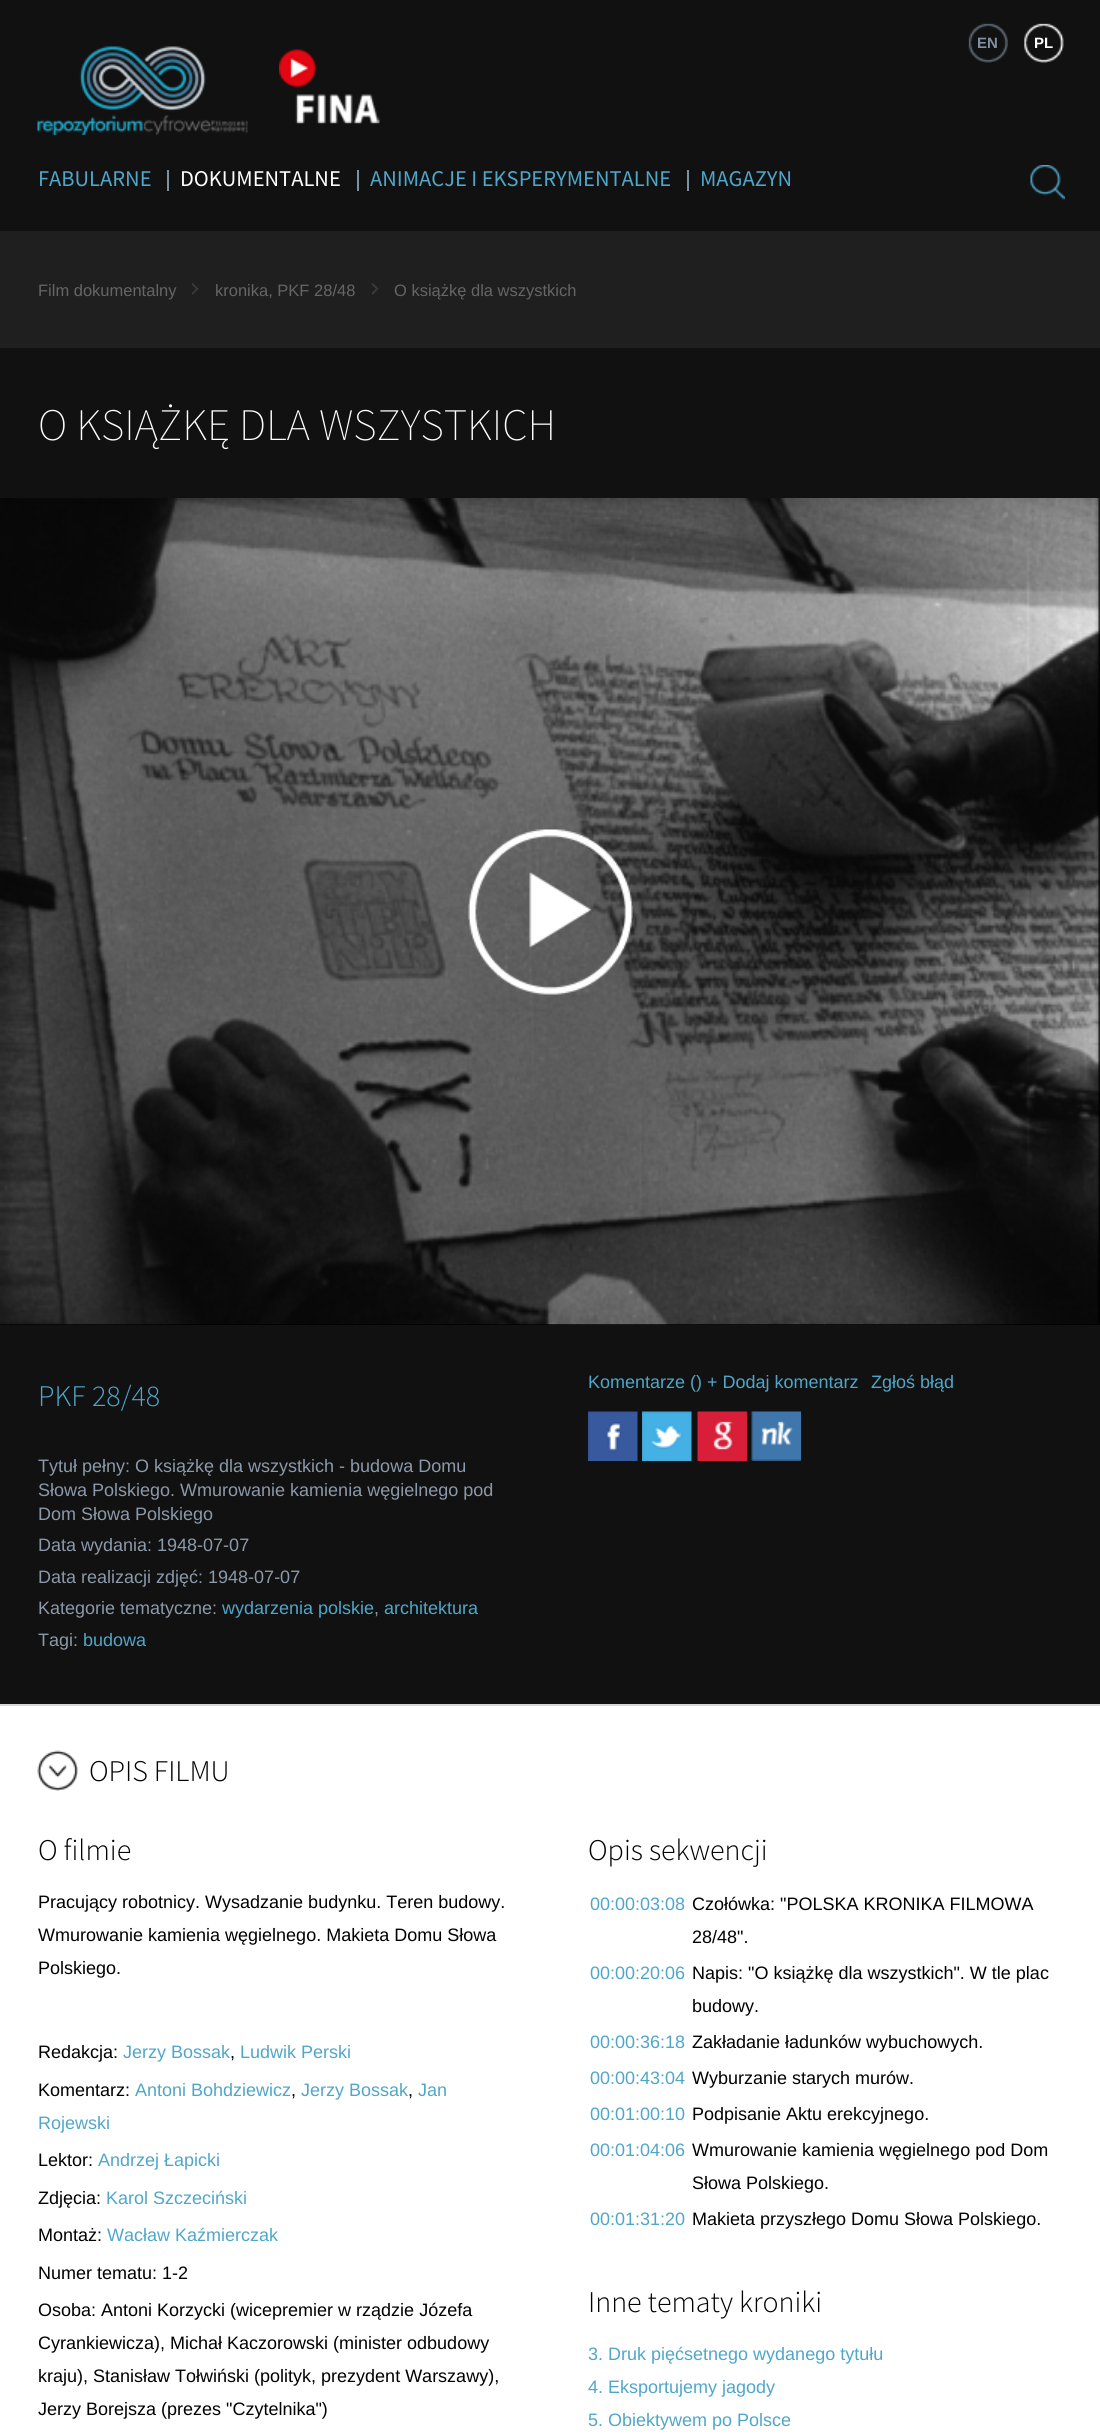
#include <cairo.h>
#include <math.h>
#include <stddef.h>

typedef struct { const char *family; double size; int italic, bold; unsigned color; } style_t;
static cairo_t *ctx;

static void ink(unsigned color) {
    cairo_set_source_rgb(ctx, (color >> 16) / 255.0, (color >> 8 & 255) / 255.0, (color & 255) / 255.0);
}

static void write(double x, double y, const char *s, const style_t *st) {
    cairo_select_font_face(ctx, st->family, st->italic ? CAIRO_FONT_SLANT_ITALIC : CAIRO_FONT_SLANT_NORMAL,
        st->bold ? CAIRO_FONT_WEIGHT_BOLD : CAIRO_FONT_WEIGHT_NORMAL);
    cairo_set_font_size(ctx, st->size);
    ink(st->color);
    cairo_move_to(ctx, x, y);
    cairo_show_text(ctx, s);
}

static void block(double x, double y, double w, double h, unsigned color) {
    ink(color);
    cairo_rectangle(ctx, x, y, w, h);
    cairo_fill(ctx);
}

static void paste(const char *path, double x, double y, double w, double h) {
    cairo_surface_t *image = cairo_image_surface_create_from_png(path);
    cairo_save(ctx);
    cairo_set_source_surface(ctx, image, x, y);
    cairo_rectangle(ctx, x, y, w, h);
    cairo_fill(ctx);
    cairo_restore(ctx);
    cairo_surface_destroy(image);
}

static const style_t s1 = {"Liberation Sans", 15, 0, 1, 0x8090a2};
static const style_t s2 = {"Liberation Sans", 15, 0, 1, 0xffffff};
static const style_t s3 = {"Source Sans Pro", 22.5, 0, 0, 0x50a6c9};
static const style_t s4 = {"Source Sans Pro", 22.5, 0, 0, 0xffffff};
static const style_t s5 = {"Liberation Sans", 16.5, 0, 0, 0x656565};
static const style_t s6 = {"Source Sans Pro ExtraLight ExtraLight", 45, 0, 0, 0xffffff};
static const style_t s7 = {"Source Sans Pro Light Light", 30, 0, 0, 0x50a6c9};
static const style_t s8 = {"Liberation Sans", 18, 0, 0, 0x8b99aa};
static const style_t s9 = {"Liberation Sans", 18, 0, 0, 0x50a6c9};
static const style_t s10 = {"Source Sans Pro Light Light", 30, 0, 0, 0x000000};
static const style_t s11 = {"Liberation Sans", 18, 0, 0, 0x000000};

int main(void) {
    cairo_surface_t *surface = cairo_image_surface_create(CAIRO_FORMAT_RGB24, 1100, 2435);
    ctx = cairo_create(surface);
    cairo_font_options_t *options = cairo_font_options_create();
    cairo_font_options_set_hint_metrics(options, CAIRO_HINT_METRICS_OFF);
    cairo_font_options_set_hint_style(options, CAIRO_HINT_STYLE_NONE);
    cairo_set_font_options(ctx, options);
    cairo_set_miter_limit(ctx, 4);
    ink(0x111111);
    cairo_paint(ctx);
    paste("pic1.png", 968, 23, 40, 40);
    paste("pic2.png", 1024, 23, 40, 40);
    write(977, 48, "EN", &s1);
    write(1034, 48, "PL", &s2);
    paste("pic3.png", 37, 46, 211, 89);
    paste("pic4.png", 279, 49, 101, 75);
    write(38, 186, "FABULARNE", &s3);
    write(180, 186, "DOKUMENTALNE", &s4);
    block(167, 170, 2, 21, 0x8090a2);
    write(370, 186, "ANIMACJE I EKSPERYMENTALNE", &s3);
    block(357, 170, 2, 21, 0x8090a2);
    write(700, 186, "MAGAZYN", &s3);
    block(687, 170, 2, 21, 0x8090a2);
    paste("pic5.png", 1030, 165, 35, 35);
    block(0, 231, 1100, 117, 0x1f1f1f);
    write(38, 296, "Film dokumentalny", &s5);
    paste("pic6.png", 191, 283, 8, 12);
    write(215, 296, "kronika, PKF 28/48", &s5);
    paste("pic7.png", 371, 283, 8, 12);
    write(394, 296, "O książkę dla wszystkich", &s5);
    write(38, 440, "O KSIĄŻKĘ DLA WSZYSTKICH", &s6);
    block(0, 1324, 1100, 1, 0x000000);
    paste("pic8.png", 0, 498, 1100, 827);
    paste("pic9.png", 468, 829, 165, 166);
    write(38, 1406, "PKF", &s7);
    write(92, 1406, "28/48", &s7);
    write(38, 1472, "Tytuł pełny: O książkę dla wszystkich - budowa Domu", &s8);
    write(38, 1496, "Słowa Polskiego. Wmurowanie kamienia węgielnego pod", &s8);
    write(38, 1520, "Dom Słowa Polskiego", &s8);
    write(38, 1551, "Data wydania: 1948-07-07", &s8);
    write(38, 1583, "Data realizacji zdjęć: 1948-07-07", &s8);
    write(38, 1614, "Kategorie tematyczne:", &s8);
    write(222, 1614, "wydarzenia polskie", &s9);
    write(374, 1614, ",", &s8);
    write(384, 1614, "architektura", &s9);
    write(38, 1646, "Tagi:", &s8);
    write(83, 1646, "budowa", &s9);
    write(588, 1388, "Komentarze () + Dodaj komentarz", &s9);
    write(871, 1388, "Zgłoś błąd", &s9);
    paste("pic10.png", 588, 1411, 50, 50);
    paste("pic11.png", 642, 1411, 50, 50);
    paste("pic12.png", 697, 1411, 50, 50);
    paste("pic13.png", 751, 1411, 50, 50);
    block(0, 1706, 1100, 729, 0xffffff);
    block(0, 1704, 1100, 2, 0xd6d8db);
    paste("pic14.png", 37, 1750, 41, 41);
    write(89, 1781, "OPIS FILMU", &s10);
    write(38, 1860, "O filmie", &s10);
    write(38, 1908, "Pracujący robotnicy. Wysadzanie budynku. Teren budowy.", &s11);
    write(38, 1941, "Wmurowanie kamienia węgielnego. Makieta Domu Słowa", &s11);
    write(38, 1974, "Polskiego.", &s11);
    write(38, 2058, "Redakcja:", &s11);
    write(123, 2058, "Jerzy Bossak", &s9);
    write(230, 2058, ",", &s11);
    write(240, 2058, "Ludwik Perski", &s9);
    write(38, 2096, "Komentarz:", &s11);
    write(135, 2096, "Antoni Bohdziewicz", &s9);
    write(291, 2096, ",", &s11);
    write(301, 2096, "Jerzy Bossak", &s9);
    write(408, 2096, ",", &s11);
    write(418, 2096, "Jan", &s9);
    write(38, 2129, "Rojewski", &s9);
    write(38, 2166, "Lektor:", &s11);
    write(98, 2166, "Andrzej Łapicki", &s9);
    write(38, 2204, "Zdjęcia:", &s11);
    write(106, 2204, "Karol Szczeciński", &s9);
    write(38, 2241, "Montaż:", &s11);
    write(107, 2241, "Wacław Kaźmierczak", &s9);
    write(38, 2279, "Numer tematu: 1-2", &s11);
    write(38, 2316, "Osoba: Antoni Korzycki (wicepremier w rządzie Józefa", &s11);
    write(38, 2349, "Cyrankiewicza), Michał Kaczorowski (minister odbudowy", &s11);
    write(38, 2382, "kraju), Stanisław Tołwiński (polityk, prezydent Warszawy),", &s11);
    write(38, 2415, "Jerzy Borejsza (prezes \"Czytelnika\")", &s11);
    write(588, 1860, "Opis sekwencji", &s10);
    write(590, 1910, "00:00:03:08", &s9);
    write(692, 1910, "Czołówka: \"POLSKA KRONIKA FILMOWA", &s11);
    write(692, 1943, "28/48\".", &s11);
    write(590, 1979, "00:00:20:06", &s9);
    write(692, 1979, "Napis: \"O książkę dla wszystkich\". W tle plac", &s11);
    write(692, 2012, "budowy.", &s11);
    write(590, 2048, "00:00:36:18", &s9);
    write(692, 2048, "Zakładanie ładunków wybuchowych.", &s11);
    write(590, 2084, "00:00:43:04", &s9);
    write(692, 2084, "Wyburzanie starych murów.", &s11);
    write(590, 2120, "00:01:00:10", &s9);
    write(692, 2120, "Podpisanie Aktu erekcyjnego.", &s11);
    write(590, 2156, "00:01:04:06", &s9);
    write(692, 2156, "Wmurowanie kamienia węgielnego pod Dom", &s11);
    write(692, 2189, "Słowa Polskiego.", &s11);
    write(590, 2225, "00:01:31:20", &s9);
    write(692, 2225, "Makieta przyszłego Domu Słowa Polskiego.", &s11);
    write(588, 2312, "Inne tematy kroniki", &s10);
    write(588, 2360, "3. Druk pięćsetnego wydanego tytułu", &s9);
    write(588, 2393, "4. Eksportujemy jagody", &s9);
    write(588, 2426, "5. Obiektywem po Polsce", &s9);
    cairo_surface_write_to_png(surface, "screenshot.png");
    cairo_font_options_destroy(options);
    cairo_destroy(ctx);
    cairo_surface_destroy(surface);
    return 0;
}
